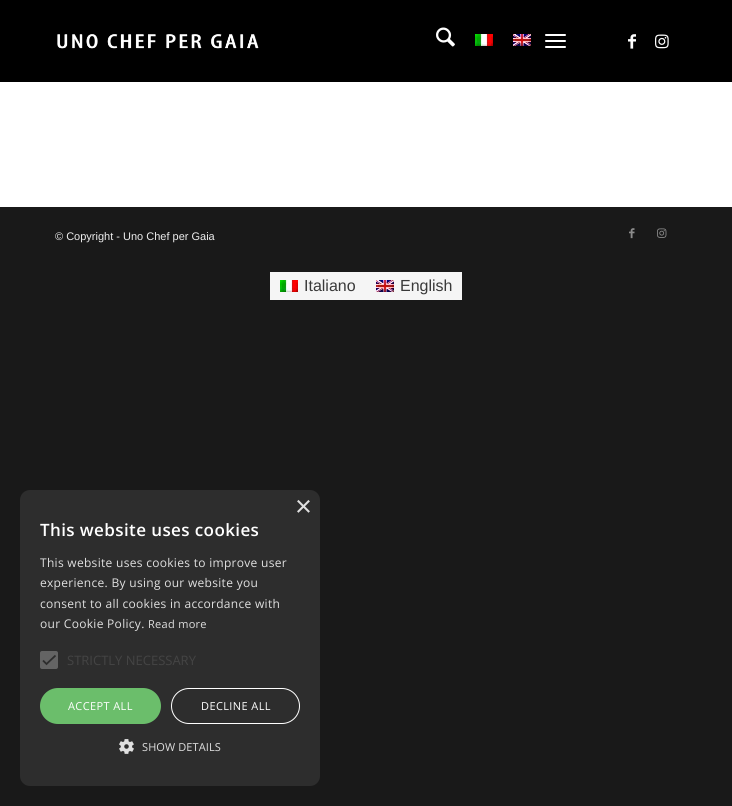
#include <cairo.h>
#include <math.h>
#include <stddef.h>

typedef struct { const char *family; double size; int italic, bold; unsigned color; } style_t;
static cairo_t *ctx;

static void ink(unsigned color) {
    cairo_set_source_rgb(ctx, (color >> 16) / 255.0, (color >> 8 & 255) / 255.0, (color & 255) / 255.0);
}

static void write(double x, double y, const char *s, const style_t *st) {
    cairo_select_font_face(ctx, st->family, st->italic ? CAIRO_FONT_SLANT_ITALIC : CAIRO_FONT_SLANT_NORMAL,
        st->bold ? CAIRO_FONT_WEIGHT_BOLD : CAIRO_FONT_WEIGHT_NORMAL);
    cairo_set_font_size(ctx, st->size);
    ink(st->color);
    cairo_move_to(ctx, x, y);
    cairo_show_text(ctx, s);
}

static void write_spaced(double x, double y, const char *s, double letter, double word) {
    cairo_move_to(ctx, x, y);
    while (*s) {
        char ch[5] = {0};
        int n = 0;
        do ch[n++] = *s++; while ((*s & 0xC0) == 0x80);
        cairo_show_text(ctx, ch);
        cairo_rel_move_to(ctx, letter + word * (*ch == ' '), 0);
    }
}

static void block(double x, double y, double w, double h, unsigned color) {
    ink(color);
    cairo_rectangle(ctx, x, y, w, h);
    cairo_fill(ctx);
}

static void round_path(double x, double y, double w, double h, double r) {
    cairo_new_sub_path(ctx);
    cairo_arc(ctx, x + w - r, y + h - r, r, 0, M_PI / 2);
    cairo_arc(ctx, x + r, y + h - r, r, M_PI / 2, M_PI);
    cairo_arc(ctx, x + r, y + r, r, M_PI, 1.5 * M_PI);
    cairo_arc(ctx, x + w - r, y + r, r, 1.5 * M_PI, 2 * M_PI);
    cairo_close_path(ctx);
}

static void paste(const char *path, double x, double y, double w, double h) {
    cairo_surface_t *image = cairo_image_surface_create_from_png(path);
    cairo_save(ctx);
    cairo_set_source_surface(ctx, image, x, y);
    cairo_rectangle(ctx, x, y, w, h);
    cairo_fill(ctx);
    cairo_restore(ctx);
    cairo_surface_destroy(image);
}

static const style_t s1 = {"Liberation Sans", 11, 0, 0, 0xeeeeee};
static const style_t s2 = {"Liberation Sans", 16, 0, 0, 0x393939};
static const style_t s3 = {"Liberation Sans", 29, 0, 0, 0xe0e0e0};
static const style_t s4 = {"Open Sans", 13, 0, 0, 0x444444};

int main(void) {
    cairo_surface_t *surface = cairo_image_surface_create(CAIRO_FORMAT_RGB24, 732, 806);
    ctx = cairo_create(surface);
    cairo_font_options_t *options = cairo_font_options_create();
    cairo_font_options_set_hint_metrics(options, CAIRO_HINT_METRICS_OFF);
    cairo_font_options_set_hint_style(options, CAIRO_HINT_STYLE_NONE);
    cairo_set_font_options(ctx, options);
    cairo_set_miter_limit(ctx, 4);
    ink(0x191919);
    cairo_paint(ctx);
    block(0, 0, 732, 82, 0x000000);
    paste("pic1.png", 57, 34, 202, 15);
    paste("pic2.png", 436, 27, 19, 20);
    paste("pic3.png", 475, 34, 18, 12);
    paste("pic4.png", 513, 34, 18, 12);
    ink(0xffffff);
    round_path(545, 40, 21, 2, 1);
    cairo_fill(ctx);
    round_path(545, 34, 21, 2, 1);
    cairo_fill(ctx);
    round_path(545, 46, 21, 2, 1);
    cairo_fill(ctx);
    paste("pic5.png", 628, 34, 8, 15);
    paste("pic6.png", 655, 34, 14, 15);
    block(0, 82, 732, 125, 0xffffff);
    write(55, 240, "© Copyright - Uno Chef per Gaia", &s1);
    paste("pic7.png", 629, 228, 6, 11);
    paste("pic8.png", 657, 228, 10, 10);
    block(270, 272, 192, 28, 0xf5f5f5);
    paste("pic3.png", 280, 280, 18, 12);
    write(304, 291, "Italiano", &s2);
    paste("pic4.png", 376, 280, 18, 12);
    write(400, 291, "English", &s2);
    ink(0x2d2d2d);
    round_path(20, 490, 300, 296, 10);
    cairo_fill(ctx);
    write(295, 516, "×", &s3);
    cairo_select_font_face(ctx, "Open Sans SemiBold", CAIRO_FONT_SLANT_NORMAL, CAIRO_FONT_WEIGHT_NORMAL);
    cairo_set_font_size(ctx, 17);
    ink(0xffffff);
    write_spaced(40, 536, "This website uses cookies", 0.4, 0);
    cairo_select_font_face(ctx, "Open Sans", CAIRO_FONT_SLANT_NORMAL, CAIRO_FONT_WEIGHT_NORMAL);
    cairo_set_font_size(ctx, 12);
    ink(0xe0e0e0);
    write_spaced(40, 567, "This website uses cookies to improve user", 0.3, 0);
    write_spaced(40, 587, "experience. By using our website you", 0.3, 0);
    write_spaced(40, 608, "consent to all cookies in accordance with", 0.3, 0);
    write_spaced(40, 628, "our Cookie Policy.", 0.3, 0);
    cairo_set_font_size(ctx, 11);
    write_spaced(148, 628, "Read more", 0.3, 0);
    ink(0x646464);
    round_path(40, 651, 18, 18, 2);
    cairo_fill(ctx);
    cairo_new_path(ctx);
    cairo_move_to(ctx, 43, 660.5);
    cairo_line_to(ctx, 46.5, 664);
    cairo_line_to(ctx, 55.5, 655.5);
    ink(0x2d2d2d);
    cairo_set_line_width(ctx, 1.8);
    cairo_stroke(ctx);
    write(67, 665, "STRICTLY NECESSARY", &s4);
    ink(0x6bbe6b);
    round_path(40, 688, 121, 36, 18);
    cairo_fill(ctx);
    cairo_set_font_size(ctx, 11);
    ink(0xffffff);
    write_spaced(68, 710, "ACCEPT ALL", 0.4, 0);
    round_path(171.5, 688.5, 128, 35, 17.5);
    cairo_set_line_width(ctx, 1);
    cairo_stroke(ctx);
    write_spaced(201, 710, "DECLINE ALL", 0.4, 0);
    paste("pic9.png", 119, 739, 15, 15);
    ink(0xe0e0e0);
    write_spaced(142, 751, "SHOW DETAILS", 0.1, 0);
    cairo_surface_write_to_png(surface, "screenshot.png");
    cairo_font_options_destroy(options);
    cairo_destroy(ctx);
    cairo_surface_destroy(surface);
    return 0;
}
